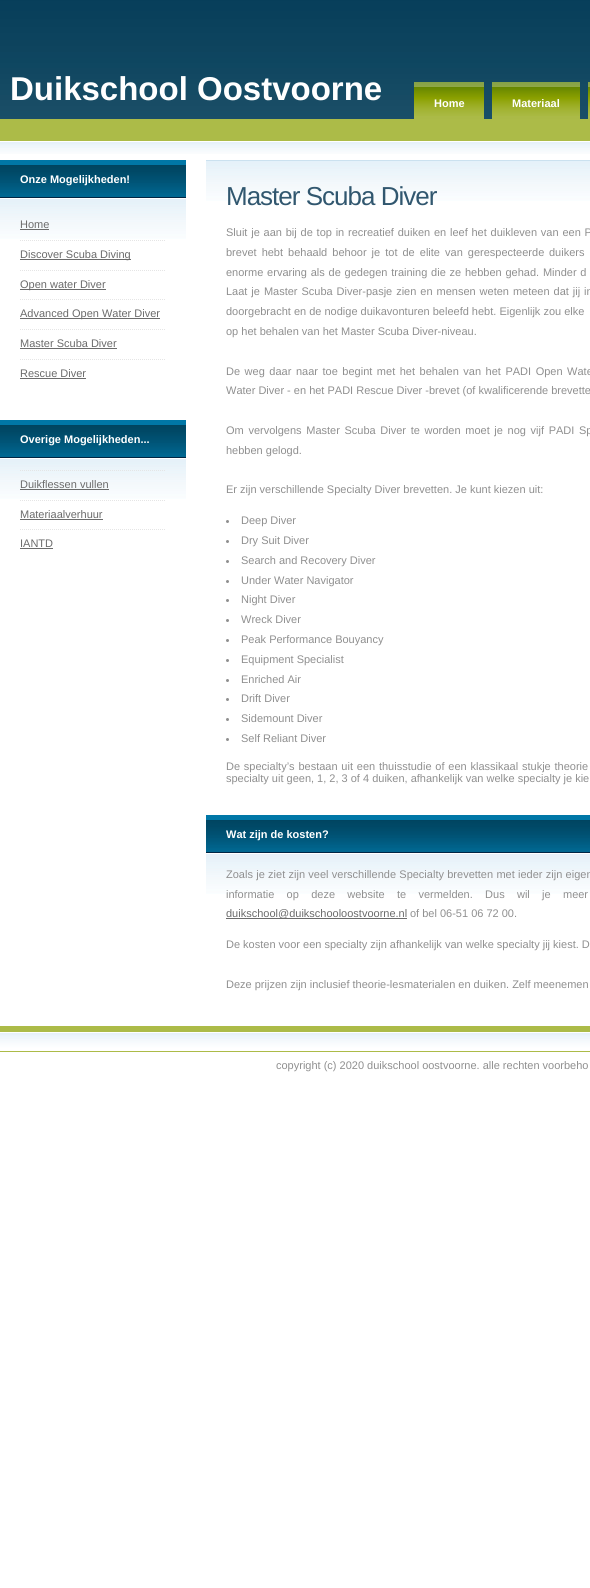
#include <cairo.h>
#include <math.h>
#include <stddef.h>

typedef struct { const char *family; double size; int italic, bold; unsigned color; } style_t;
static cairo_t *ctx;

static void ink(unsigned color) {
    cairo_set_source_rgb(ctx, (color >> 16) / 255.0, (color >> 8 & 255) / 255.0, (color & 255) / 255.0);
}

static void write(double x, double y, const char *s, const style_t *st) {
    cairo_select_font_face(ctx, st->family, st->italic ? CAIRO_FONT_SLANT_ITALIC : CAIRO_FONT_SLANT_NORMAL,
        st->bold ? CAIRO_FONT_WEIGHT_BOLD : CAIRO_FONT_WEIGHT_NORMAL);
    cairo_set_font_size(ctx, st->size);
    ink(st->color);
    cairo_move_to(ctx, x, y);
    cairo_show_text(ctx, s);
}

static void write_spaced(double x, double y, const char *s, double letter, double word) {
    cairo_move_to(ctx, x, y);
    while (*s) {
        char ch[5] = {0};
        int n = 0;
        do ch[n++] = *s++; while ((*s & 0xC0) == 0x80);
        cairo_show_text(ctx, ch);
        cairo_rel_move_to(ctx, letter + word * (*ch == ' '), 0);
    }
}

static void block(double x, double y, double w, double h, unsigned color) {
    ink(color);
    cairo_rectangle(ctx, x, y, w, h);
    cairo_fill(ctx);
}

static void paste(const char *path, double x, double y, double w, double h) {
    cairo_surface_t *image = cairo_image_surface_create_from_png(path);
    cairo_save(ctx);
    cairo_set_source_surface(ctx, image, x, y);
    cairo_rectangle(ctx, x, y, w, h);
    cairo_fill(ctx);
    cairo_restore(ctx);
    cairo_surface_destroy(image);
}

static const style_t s1 = {"Liberation Sans", 33, 0, 1, 0xffffff};
static const style_t s2 = {"Liberation Sans", 11, 0, 1, 0xffffff};
static const style_t s3 = {"Liberation Sans", 11, 0, 0, 0x6b6b6b};
static const style_t s4 = {"Liberation Sans", 11, 0, 0, 0x8f8f8f};

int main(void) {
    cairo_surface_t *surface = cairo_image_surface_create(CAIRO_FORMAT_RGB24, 590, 1588);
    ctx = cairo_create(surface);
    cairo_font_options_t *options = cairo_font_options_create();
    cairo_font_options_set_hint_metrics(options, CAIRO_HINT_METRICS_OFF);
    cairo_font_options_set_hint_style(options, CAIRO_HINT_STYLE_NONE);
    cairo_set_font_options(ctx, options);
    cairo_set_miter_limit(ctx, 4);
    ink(0xffffff);
    cairo_paint(ctx);
    paste("pic1.png", 0, 0, 590, 154);
    write(10, 100, "Duikschool Oostvoorne", &s1);
    block(414, 116, 70, 3, 0xabba47);
    paste("pic2.png", 414, 82, 70, 34);
    write(434, 107, "Home", &s2);
    block(492, 116, 88, 3, 0xabba47);
    paste("pic3.png", 492, 82, 88, 34);
    write(512, 107, "Materiaal", &s2);
    block(588, 116, 2, 3, 0xabba47);
    paste("pic4.png", 588, 82, 2, 34);
    block(0, 160, 186, 5, 0x0077a7);
    paste("pic5.png", 0, 165, 186, 33);
    write(20, 183, "Onze Mogelijkheden!", &s2);
    paste("pic6.png", 0, 199, 186, 40);
    write(20, 228, "Home", &s3);
    block(20, 229, 29, 1, 0x6b6b6b);
    paste("pic7.png", 20, 240, 145, 1);
    block(20, 259, 111, 1, 0x6b6b6b);
    write(20, 258, "Discover Scuba Diving", &s3);
    paste("pic7.png", 20, 270, 145, 1);
    block(20, 289, 86, 1, 0x6b6b6b);
    write(20, 288, "Open water Diver", &s3);
    paste("pic7.png", 20, 299, 145, 1);
    block(20, 318, 140, 1, 0x6b6b6b);
    write(20, 317, "Advanced Open Water Diver", &s3);
    paste("pic7.png", 20, 329, 145, 1);
    write(20, 347, "Master Scuba Diver", &s3);
    block(20, 348, 97, 1, 0x6b6b6b);
    paste("pic7.png", 20, 359, 145, 1);
    write(20, 377, "Rescue Diver", &s3);
    block(20, 378, 66, 1, 0x6b6b6b);
    block(0, 420, 186, 5, 0x0077a7);
    paste("pic5.png", 0, 425, 186, 33);
    write(20, 443, "Overige Mogelijkheden...", &s2);
    paste("pic6.png", 0, 459, 186, 40);
    paste("pic8.png", 20, 470, 145, 1);
    write(20, 488, "Duikflessen vullen", &s3);
    block(20, 489, 89, 1, 0x6b6b6b);
    paste("pic7.png", 20, 500, 145, 1);
    write(20, 518, "Materiaalverhuur", &s3);
    block(20, 519, 83, 1, 0x6b6b6b);
    paste("pic7.png", 20, 529, 145, 1);
    write(20, 547, "IANTD", &s3);
    block(20, 548, 33, 1, 0x6b6b6b);
    paste("pic9.png", 206, 161, 384, 40);
    block(206, 160, 384, 1, 0xcbe1ef);
    cairo_set_font_size(ctx, 26);
    ink(0x31576f);
    write_spaced(226, 205, "Master Scuba Diver", -1, 0);
    cairo_set_font_size(ctx, 11);
    ink(0x8f8f8f);
    write_spaced(226, 236, "Sluit je aan bij de top in recreatief duiken en leef het duikleven van een P", 0, 0.75);
    write_spaced(226, 256, "brevet hebt behaald behoor je tot de elite van gerespecteerde", 0, 2);
    write_spaced(549, 256, "duikers", 0, 2);
    write_spaced(226, 276, "enorme ervaring als de gedegen training die ze hebben gehad. Minder d", 0, 0.75);
    write_spaced(226, 295, "Laat je Master Scuba Diver-pasje zien en mensen weten meteen dat jij in", 0, 0.9);
    write(226, 315, "doorgebracht en de nodige duikavonturen beleefd hebt. Eigenlijk zou elke", &s4);
    write(226, 335, "op het behalen van het Master Scuba Diver-niveau.", &s4);
    write_spaced(226, 375, "De weg daar naar toe begint met het behalen van het PADI Open Wate", 0, 1.5);
    write(226, 394, "Water Diver - en het PADI Rescue Diver -brevet (of kwalificerende brevette", &s4);
    write_spaced(226, 434, "Om vervolgens Master Scuba Diver te worden moet je nog vijf PADI Sp", 0, 1.6);
    write(226, 454, "hebben gelogd.", &s4);
    write(226, 493, "Er zijn verschillende Specialty Diver brevetten. Je kunt kiezen uit:", &s4);
    cairo_new_path(ctx);
    cairo_arc(ctx, 227.5, 521.5, 1.5, 0, 2 * M_PI);
    cairo_fill(ctx);
    write(241, 524, "Deep Diver", &s4);
    cairo_new_path(ctx);
    cairo_arc(ctx, 227.5, 541.5, 1.5, 0, 2 * M_PI);
    cairo_fill(ctx);
    write(241, 544, "Dry Suit Diver", &s4);
    cairo_new_path(ctx);
    cairo_arc(ctx, 227.5, 561.5, 1.5, 0, 2 * M_PI);
    cairo_fill(ctx);
    write(241, 564, "Search and Recovery Diver", &s4);
    cairo_new_path(ctx);
    cairo_arc(ctx, 227.5, 581.5, 1.5, 0, 2 * M_PI);
    cairo_fill(ctx);
    write(241, 584, "Under Water Navigator", &s4);
    cairo_new_path(ctx);
    cairo_arc(ctx, 227.5, 600.5, 1.5, 0, 2 * M_PI);
    cairo_fill(ctx);
    write(241, 603, "Night Diver", &s4);
    cairo_new_path(ctx);
    cairo_arc(ctx, 227.5, 620.5, 1.5, 0, 2 * M_PI);
    cairo_fill(ctx);
    write(241, 623, "Wreck Diver", &s4);
    cairo_new_path(ctx);
    cairo_arc(ctx, 227.5, 640.5, 1.5, 0, 2 * M_PI);
    cairo_fill(ctx);
    write(241, 643, "Peak Performance Bouyancy", &s4);
    cairo_new_path(ctx);
    cairo_arc(ctx, 227.5, 660.5, 1.5, 0, 2 * M_PI);
    cairo_fill(ctx);
    write(241, 663, "Equipment Specialist", &s4);
    cairo_new_path(ctx);
    cairo_arc(ctx, 227.5, 680.5, 1.5, 0, 2 * M_PI);
    cairo_fill(ctx);
    write(241, 683, "Enriched Air", &s4);
    cairo_new_path(ctx);
    cairo_arc(ctx, 227.5, 699.5, 1.5, 0, 2 * M_PI);
    cairo_fill(ctx);
    write(241, 702, "Drift Diver", &s4);
    cairo_new_path(ctx);
    cairo_arc(ctx, 227.5, 719.5, 1.5, 0, 2 * M_PI);
    cairo_fill(ctx);
    write(241, 722, "Sidemount Diver", &s4);
    cairo_new_path(ctx);
    cairo_arc(ctx, 227.5, 739.5, 1.5, 0, 2 * M_PI);
    cairo_fill(ctx);
    write(241, 742, "Self Reliant Diver", &s4);
    write_spaced(226, 770, "De specialty’s bestaan uit een thuisstudie of een klassikaal stukje theorie", 0, 0.75);
    write(226, 782, "specialty uit geen, 1, 2, 3 of 4 duiken, afhankelijk van welke specialty je kie", &s4);
    block(206, 815, 384, 5, 0x0077a7);
    paste("pic10.png", 206, 820, 384, 33);
    write(226, 838, "Wat zijn de kosten?", &s2);
    paste("pic9.png", 206, 854, 384, 40);
    cairo_select_font_face(ctx, "Liberation Sans", CAIRO_FONT_SLANT_NORMAL, CAIRO_FONT_WEIGHT_NORMAL);
    ink(0x8f8f8f);
    write_spaced(226, 878, "Zoals je ziet zijn veel verschillende Specialty brevetten met ieder zijn eigen", 0, 0.25);
    write_spaced(226, 898, "informatie op deze website te vermelden. Dus wil je meer", 0, 9.25);
    block(226, 918, 181, 1, 0x6b6b6b);
    write(226, 917, "duikschool@duikschooloostvoorne.nl", &s3);
    write(410, 917, "of bel 06-51 06 72 00.", &s4);
    write(226, 948, "De kosten voor een specialty zijn afhankelijk van welke specialty jij kiest. D", &s4);
    write(226, 988, "Deze prijzen zijn inclusief theorie-lesmaterialen en duiken. Zelf meenemen", &s4);
    paste("pic11.png", 0, 1026, 590, 26);
    write(276, 1069, "copyright (c) 2020 duikschool oostvoorne. alle rechten voorbeho", &s4);
    cairo_surface_write_to_png(surface, "screenshot.png");
    cairo_font_options_destroy(options);
    cairo_destroy(ctx);
    cairo_surface_destroy(surface);
    return 0;
}
